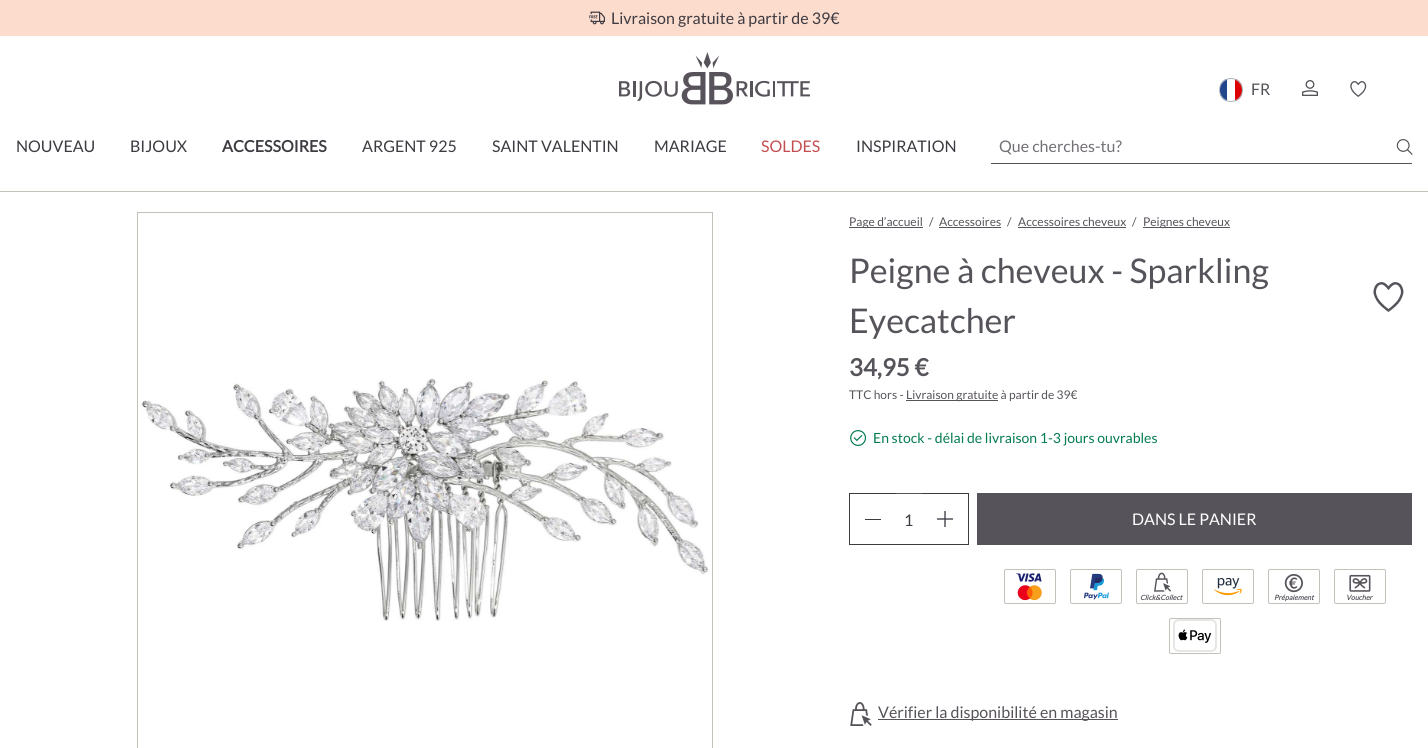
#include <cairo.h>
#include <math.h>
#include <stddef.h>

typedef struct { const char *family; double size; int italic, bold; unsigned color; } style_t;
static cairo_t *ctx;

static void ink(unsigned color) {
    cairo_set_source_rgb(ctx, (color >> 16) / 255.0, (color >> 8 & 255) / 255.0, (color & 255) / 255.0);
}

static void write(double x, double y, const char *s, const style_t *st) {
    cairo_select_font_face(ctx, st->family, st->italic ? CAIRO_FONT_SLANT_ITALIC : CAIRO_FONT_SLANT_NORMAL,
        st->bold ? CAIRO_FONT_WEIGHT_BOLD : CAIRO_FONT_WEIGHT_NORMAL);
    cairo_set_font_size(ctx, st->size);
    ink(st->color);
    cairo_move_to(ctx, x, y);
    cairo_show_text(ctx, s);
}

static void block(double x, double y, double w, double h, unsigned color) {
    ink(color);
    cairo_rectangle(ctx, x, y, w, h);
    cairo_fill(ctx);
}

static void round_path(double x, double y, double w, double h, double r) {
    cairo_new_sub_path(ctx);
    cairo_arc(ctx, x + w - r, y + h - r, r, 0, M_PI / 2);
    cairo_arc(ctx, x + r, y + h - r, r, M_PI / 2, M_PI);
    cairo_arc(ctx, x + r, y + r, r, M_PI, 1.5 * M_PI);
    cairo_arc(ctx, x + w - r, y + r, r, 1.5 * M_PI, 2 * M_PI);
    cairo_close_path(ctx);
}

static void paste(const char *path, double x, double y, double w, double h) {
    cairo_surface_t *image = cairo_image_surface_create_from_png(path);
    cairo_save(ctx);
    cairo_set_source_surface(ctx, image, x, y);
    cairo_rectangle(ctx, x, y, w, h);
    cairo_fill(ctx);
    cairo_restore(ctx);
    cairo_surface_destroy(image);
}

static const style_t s1 = {"Lato", 16, 0, 0, 0x3d3a41};
static const style_t s2 = {"Lato", 16, 0, 0, 0x57535a};
static const style_t s3 = {"Lato", 16, 0, 1, 0x3d3a41};
static const style_t s4 = {"Lato", 16, 0, 0, 0xc44d4f};
static const style_t s5 = {"Lato", 16, 0, 0, 0x736f76};
static const style_t s6 = {"Lato", 12, 0, 0, 0x57535a};
static const style_t s7 = {"Lato", 34, 0, 0, 0x57535a};
static const style_t s8 = {"Lato", 24, 0, 1, 0x57535a};
static const style_t s9 = {"Lato", 14, 0, 0, 0x037c4e};
static const style_t s10 = {"Lato", 16, 0, 0, 0xffffff};
static const style_t s11 = {"Lato", 7, 1, 1, 0x57535a};

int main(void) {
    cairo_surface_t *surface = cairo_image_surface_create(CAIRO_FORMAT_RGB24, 1428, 748);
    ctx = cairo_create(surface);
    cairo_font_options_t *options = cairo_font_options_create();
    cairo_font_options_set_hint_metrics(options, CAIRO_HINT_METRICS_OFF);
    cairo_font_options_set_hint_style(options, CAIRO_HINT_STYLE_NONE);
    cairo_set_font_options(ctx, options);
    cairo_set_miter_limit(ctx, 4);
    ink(0xffffff);
    cairo_paint(ctx);
    block(0, 191, 1428, 1, 0xc2c1ba);
    block(0, 0, 1428, 36, 0xfcdccd);
    paste("pic1.png", 589, 11, 16, 14);
    write(611, 24, "Livraison gratuite à partir de 39€", &s1);
    paste("pic2.png", 619, 52, 191, 53);
    cairo_save(ctx);
    round_path(1219, 78, 24, 24, 12);
    cairo_clip(ctx);
    block(1220, 79, 7, 22, 0x21468b);
    block(1235, 79, 7, 22, 0xdd0000);
    cairo_restore(ctx);
    cairo_arc(ctx, 1231, 90, 11.5, 0, 2 * M_PI);
    ink(0xadb5bd);
    cairo_set_line_width(ctx, 1);
    cairo_stroke(ctx);
    write(1251, 95, "FR", &s2);
    paste("pic3.png", 1302, 80, 16, 16);
    paste("pic4.png", 1350, 81, 17, 16);
    write(16, 152, "NOUVEAU", &s1);
    write(130, 152, "BIJOUX", &s1);
    write(222, 152, "ACCESSOIRES", &s3);
    write(362, 152, "ARGENT 925", &s1);
    write(492, 152, "SAINT VALENTIN", &s1);
    write(654, 152, "MARIAGE", &s1);
    write(761, 152, "SOLDES", &s4);
    write(856, 152, "INSPIRATION", &s1);
    block(991, 163, 421, 1, 0x57535a);
    write(999, 152, "Que cherches-tu?", &s5);
    paste("pic5.png", 1396, 139, 17, 16);
    cairo_rectangle(ctx, 137.5, 212.5, 575, 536);
    ink(0xc2c1ba);
    cairo_stroke(ctx);
    paste("pic6.png", 141, 378, 568, 243);
    block(849, 227, 74, 1, 0x57535a);
    write(849, 226, "Page d’accueil", &s6);
    write(929, 226, "/", &s6);
    write(939, 226, "Accessoires", &s6);
    block(939, 227, 62, 1, 0x57535a);
    write(1007, 226, "/", &s6);
    write(1018, 226, "Accessoires cheveux", &s6);
    block(1018, 227, 108, 1, 0x57535a);
    write(1132, 226, "/", &s6);
    block(1143, 227, 87, 1, 0x57535a);
    write(1143, 226, "Peignes cheveux", &s6);
    write(849, 283, "Peigne à cheveux - Sparkling", &s7);
    write(849, 333, "Eyecatcher", &s7);
    paste("pic7.png", 1373, 282, 31, 30);
    write(849, 376, "34,95 €", &s8);
    write(849, 399, "TTC hors -", &s6);
    block(906, 400, 92, 1, 0x57535a);
    write(906, 399, "Livraison gratuite à partir de 39€", &s6);
    paste("pic8.png", 850, 430, 17, 16);
    write(873, 443, "En stock - délai de livraison 1-3 jours ouvrables", &s9);
    block(895, 493, 28, 1, 0x57535a);
    block(849, 493, 47, 1, 0x3d3a41);
    block(849, 544, 74, 1, 0x3d3a41);
    block(849, 493, 1, 52, 0x3d3a41);
    block(865, 519, 16, 1, 0x3d3a41);
    write(904, 526, "1", &s1);
    block(922, 493, 47, 1, 0x3d3a41);
    block(968, 493, 1, 52, 0x3d3a41);
    block(922, 544, 47, 1, 0x3d3a41);
    paste("pic9.png", 937, 511, 16, 16);
    block(977, 493, 435, 52, 0x57535a);
    write(1132, 525, "DANS LE PANIER", &s10);
    round_path(1004.5, 569.5, 51, 34, 1.5);
    ink(0xc2c1ba);
    cairo_stroke(ctx);
    paste("pic10.png", 1015, 573, 27, 28);
    round_path(1070.5, 569.5, 51, 34, 1.5);
    cairo_stroke(ctx);
    paste("pic11.png", 1084, 573, 25, 27);
    round_path(1136.5, 569.5, 51, 34, 1.5);
    cairo_stroke(ctx);
    paste("pic12.png", 1154, 572, 18, 20);
    write(1140, 600, "Click&Collect", &s11);
    round_path(1202.5, 569.5, 51, 34, 1.5);
    ink(0xc2c1ba);
    cairo_stroke(ctx);
    paste("pic13.png", 1214, 577, 28, 19);
    round_path(1268.5, 569.5, 51, 34, 1.5);
    cairo_stroke(ctx);
    paste("pic14.png", 1284, 574, 19, 19);
    write(1274, 600, "Prépaiement", &s11);
    round_path(1334.5, 569.5, 51, 34, 1.5);
    ink(0xc2c1ba);
    cairo_stroke(ctx);
    paste("pic15.png", 1349, 574, 22, 18);
    write(1346, 600, "Voucher", &s11);
    round_path(1169.5, 618.5, 51, 35, 1.5);
    ink(0xc2c1ba);
    cairo_stroke(ctx);
    paste("pic16.png", 1173, 619, 44, 33);
    paste("pic17.png", 850, 702, 22, 24);
    block(878, 719, 240, 1, 0x57535a);
    write(878, 718, "Vérifier la disponibilité en magasin", &s2);
    cairo_surface_write_to_png(surface, "screenshot.png");
    cairo_font_options_destroy(options);
    cairo_destroy(ctx);
    cairo_surface_destroy(surface);
    return 0;
}
